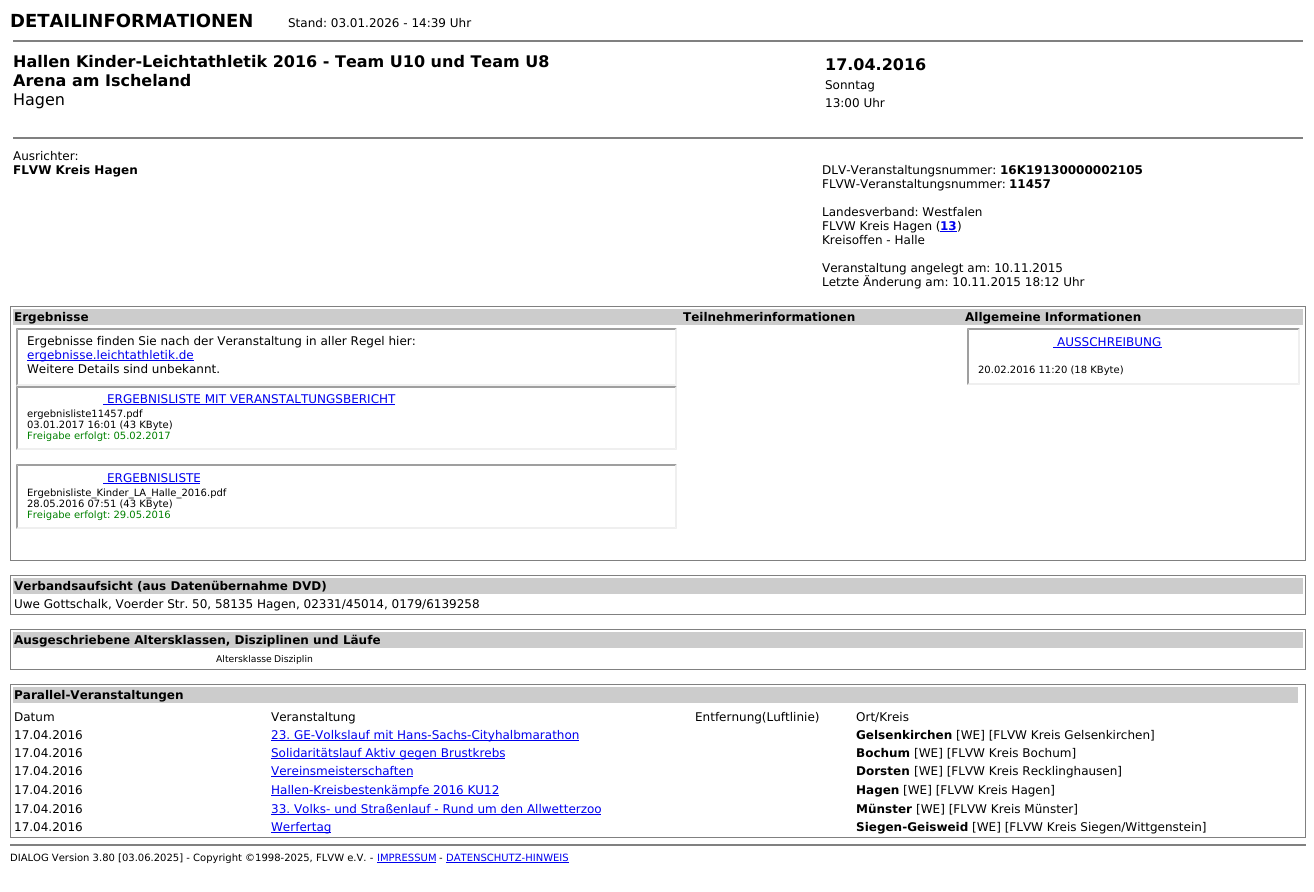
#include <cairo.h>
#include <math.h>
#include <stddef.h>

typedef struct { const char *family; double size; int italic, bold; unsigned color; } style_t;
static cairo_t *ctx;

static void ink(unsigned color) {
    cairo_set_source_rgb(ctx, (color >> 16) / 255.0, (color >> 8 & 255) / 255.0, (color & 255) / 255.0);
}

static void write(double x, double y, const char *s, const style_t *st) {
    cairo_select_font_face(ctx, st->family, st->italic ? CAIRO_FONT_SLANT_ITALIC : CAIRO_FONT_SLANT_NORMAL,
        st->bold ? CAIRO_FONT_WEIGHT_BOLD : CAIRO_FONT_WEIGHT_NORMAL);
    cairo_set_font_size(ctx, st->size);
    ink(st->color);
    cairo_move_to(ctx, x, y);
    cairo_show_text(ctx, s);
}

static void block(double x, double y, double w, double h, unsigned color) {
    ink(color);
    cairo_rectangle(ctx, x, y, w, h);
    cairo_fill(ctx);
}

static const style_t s1 = {"DejaVu Sans", 18, 0, 1, 0x000000};
static const style_t s2 = {"DejaVu Sans", 12, 0, 0, 0x000000};
static const style_t s3 = {"DejaVu Sans", 16, 0, 1, 0x000000};
static const style_t s4 = {"DejaVu Sans", 16, 0, 0, 0x000000};
static const style_t s5 = {"DejaVu Sans", 12, 0, 1, 0x000000};
static const style_t s6 = {"DejaVu Sans", 12, 0, 1, 0x0000ee};
static const style_t s7 = {"DejaVu Sans", 12, 0, 0, 0x0000ee};
static const style_t s8 = {"DejaVu Sans", 10, 0, 0, 0x000000};
static const style_t s9 = {"DejaVu Sans", 10, 0, 0, 0x008000};
static const style_t s10 = {"DejaVu Sans", 9.25, 0, 0, 0x000000};
static const style_t s11 = {"DejaVu Sans", 10, 0, 0, 0x0000ee};

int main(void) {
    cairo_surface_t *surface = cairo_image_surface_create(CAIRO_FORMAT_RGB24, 1314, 892);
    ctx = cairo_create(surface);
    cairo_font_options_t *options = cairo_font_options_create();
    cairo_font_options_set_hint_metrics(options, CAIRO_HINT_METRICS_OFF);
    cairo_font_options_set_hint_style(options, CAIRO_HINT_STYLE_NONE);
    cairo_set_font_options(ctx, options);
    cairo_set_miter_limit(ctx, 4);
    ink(0xffffff);
    cairo_paint(ctx);
    write(10, 27, "DETAILINFORMATIONEN", &s1);
    write(288, 27, "Stand: 03.01.2026 - 14:39 Uhr", &s2);
    block(13, 40, 1290, 2, 0x808080);
    write(13, 67, "Hallen Kinder-Leichtathletik 2016 - Team U10 und Team U8", &s3);
    write(13, 86, "Arena am Ischeland", &s3);
    write(13, 105, "Hagen", &s4);
    write(825, 70, "17.04.2016", &s3);
    write(825, 89, "Sonntag", &s2);
    write(825, 107, "13:00 Uhr", &s2);
    block(13, 137, 1290, 2, 0x808080);
    write(13, 160, "Ausrichter:", &s2);
    write(13, 174, "FLVW Kreis Hagen", &s5);
    write(822, 174, "DLV-Veranstaltungsnummer:", &s2);
    write(1000, 174, "16K19130000002105", &s5);
    write(822, 188, "FLVW-Veranstaltungsnummer:", &s2);
    write(1009, 188, "11457", &s5);
    write(822, 216, "Landesverband: Westfalen", &s2);
    write(822, 230, "FLVW Kreis Hagen (", &s2);
    write(940, 230, "13", &s6);
    block(940, 231, 17, 1, 0x0000ee);
    write(957, 230, ")", &s2);
    write(822, 244, "Kreisoffen - Halle", &s2);
    write(822, 272, "Veranstaltung angelegt am: 10.11.2015", &s2);
    write(822, 286, "Letzte Änderung am: 10.11.2015 18:12 Uhr", &s2);
    cairo_rectangle(ctx, 10.5, 306.5, 1295, 254);
    ink(0x808080);
    cairo_set_line_width(ctx, 1);
    cairo_stroke(ctx);
    block(13, 309, 1290, 16, 0xcccccc);
    write(14, 321, "Ergebnisse", &s5);
    write(683, 321, "Teilnehmerinformationen", &s5);
    write(965, 321, "Allgemeine Informationen", &s5);
    ink(0x9f9f9f);
    cairo_new_path(ctx);
    cairo_move_to(ctx, 16, 328);
    cairo_line_to(ctx, 677, 328);
    cairo_line_to(ctx, 675, 330);
    cairo_line_to(ctx, 18, 330);
    cairo_close_path(ctx);
    cairo_fill(ctx);
    ink(0xefefef);
    cairo_new_path(ctx);
    cairo_move_to(ctx, 677, 328);
    cairo_line_to(ctx, 677, 386);
    cairo_line_to(ctx, 675, 384);
    cairo_line_to(ctx, 675, 330);
    cairo_close_path(ctx);
    cairo_fill(ctx);
    cairo_new_path(ctx);
    cairo_move_to(ctx, 677, 386);
    cairo_line_to(ctx, 16, 386);
    cairo_line_to(ctx, 18, 384);
    cairo_line_to(ctx, 675, 384);
    cairo_close_path(ctx);
    cairo_fill(ctx);
    ink(0x9f9f9f);
    cairo_new_path(ctx);
    cairo_move_to(ctx, 16, 386);
    cairo_line_to(ctx, 16, 328);
    cairo_line_to(ctx, 18, 330);
    cairo_line_to(ctx, 18, 384);
    cairo_close_path(ctx);
    cairo_fill(ctx);
    write(27, 345, "Ergebnisse finden Sie nach der Veranstaltung in aller Regel hier:", &s2);
    block(27, 360, 167, 1, 0x0000ee);
    write(27, 359, "ergebnisse.leichtathletik.de", &s7);
    write(27, 373, "Weitere Details sind unbekannt.", &s2);
    ink(0x9f9f9f);
    cairo_new_path(ctx);
    cairo_move_to(ctx, 16, 386);
    cairo_line_to(ctx, 677, 386);
    cairo_line_to(ctx, 675, 388);
    cairo_line_to(ctx, 18, 388);
    cairo_close_path(ctx);
    cairo_fill(ctx);
    ink(0xefefef);
    cairo_new_path(ctx);
    cairo_move_to(ctx, 677, 386);
    cairo_line_to(ctx, 677, 450);
    cairo_line_to(ctx, 675, 448);
    cairo_line_to(ctx, 675, 388);
    cairo_close_path(ctx);
    cairo_fill(ctx);
    cairo_new_path(ctx);
    cairo_move_to(ctx, 677, 450);
    cairo_line_to(ctx, 16, 450);
    cairo_line_to(ctx, 18, 448);
    cairo_line_to(ctx, 675, 448);
    cairo_close_path(ctx);
    cairo_fill(ctx);
    ink(0x9f9f9f);
    cairo_new_path(ctx);
    cairo_move_to(ctx, 16, 450);
    cairo_line_to(ctx, 16, 386);
    cairo_line_to(ctx, 18, 388);
    cairo_line_to(ctx, 18, 448);
    cairo_close_path(ctx);
    cairo_fill(ctx);
    write(107, 403, "ERGEBNISLISTE MIT VERANSTALTUNGSBERICHT", &s7);
    block(103, 404, 292, 1, 0x0000ee);
    write(27, 417, "ergebnisliste11457.pdf", &s8);
    write(27, 428, "03.01.2017 16:01 (43 KByte)", &s8);
    write(27, 439, "Freigabe erfolgt: 05.02.2017", &s9);
    ink(0x9f9f9f);
    cairo_new_path(ctx);
    cairo_move_to(ctx, 16, 464);
    cairo_line_to(ctx, 677, 464);
    cairo_line_to(ctx, 675, 466);
    cairo_line_to(ctx, 18, 466);
    cairo_close_path(ctx);
    cairo_fill(ctx);
    ink(0xefefef);
    cairo_new_path(ctx);
    cairo_move_to(ctx, 677, 464);
    cairo_line_to(ctx, 677, 529);
    cairo_line_to(ctx, 675, 527);
    cairo_line_to(ctx, 675, 466);
    cairo_close_path(ctx);
    cairo_fill(ctx);
    cairo_new_path(ctx);
    cairo_move_to(ctx, 677, 529);
    cairo_line_to(ctx, 16, 529);
    cairo_line_to(ctx, 18, 527);
    cairo_line_to(ctx, 675, 527);
    cairo_close_path(ctx);
    cairo_fill(ctx);
    ink(0x9f9f9f);
    cairo_new_path(ctx);
    cairo_move_to(ctx, 16, 529);
    cairo_line_to(ctx, 16, 464);
    cairo_line_to(ctx, 18, 466);
    cairo_line_to(ctx, 18, 527);
    cairo_close_path(ctx);
    cairo_fill(ctx);
    write(107, 482, "ERGEBNISLISTE", &s7);
    block(103, 483, 97, 1, 0x0000ee);
    write(27, 496, "Ergebnisliste_Kinder_LA_Halle_2016.pdf", &s8);
    write(27, 507, "28.05.2016 07:51 (43 KByte)", &s8);
    write(27, 518, "Freigabe erfolgt: 29.05.2016", &s9);
    ink(0x9f9f9f);
    cairo_new_path(ctx);
    cairo_move_to(ctx, 967, 328);
    cairo_line_to(ctx, 1300, 328);
    cairo_line_to(ctx, 1298, 330);
    cairo_line_to(ctx, 969, 330);
    cairo_close_path(ctx);
    cairo_fill(ctx);
    ink(0xefefef);
    cairo_new_path(ctx);
    cairo_move_to(ctx, 1300, 328);
    cairo_line_to(ctx, 1300, 385);
    cairo_line_to(ctx, 1298, 383);
    cairo_line_to(ctx, 1298, 330);
    cairo_close_path(ctx);
    cairo_fill(ctx);
    cairo_new_path(ctx);
    cairo_move_to(ctx, 1300, 385);
    cairo_line_to(ctx, 967, 385);
    cairo_line_to(ctx, 969, 383);
    cairo_line_to(ctx, 1298, 383);
    cairo_close_path(ctx);
    cairo_fill(ctx);
    ink(0x9f9f9f);
    cairo_new_path(ctx);
    cairo_move_to(ctx, 967, 385);
    cairo_line_to(ctx, 967, 328);
    cairo_line_to(ctx, 969, 330);
    cairo_line_to(ctx, 969, 383);
    cairo_close_path(ctx);
    cairo_fill(ctx);
    write(1057, 346, "AUSSCHREIBUNG", &s7);
    block(1053, 347, 109, 1, 0x0000ee);
    write(978, 373, "20.02.2016 11:20 (18 KByte)", &s8);
    cairo_rectangle(ctx, 10.5, 575.5, 1295, 39);
    ink(0x808080);
    cairo_stroke(ctx);
    block(13, 578, 1290, 16, 0xcccccc);
    write(14, 590, "Verbandsaufsicht (aus Datenübernahme DVD)", &s5);
    write(14, 608, "Uwe Gottschalk, Voerder Str. 50, 58135 Hagen, 02331/45014, 0179/6139258", &s2);
    cairo_rectangle(ctx, 10.5, 629.5, 1295, 40);
    ink(0x808080);
    cairo_stroke(ctx);
    block(13, 632, 1290, 16, 0xcccccc);
    write(14, 644, "Ausgeschriebene Altersklassen, Disziplinen und Läufe", &s5);
    write(216, 662, "Altersklasse", &s10);
    write(274, 662, "Disziplin", &s10);
    cairo_rectangle(ctx, 10.5, 684.5, 1295, 153);
    ink(0x808080);
    cairo_stroke(ctx);
    block(13, 687, 1285, 16, 0xcccccc);
    write(14, 699, "Parallel-Veranstaltungen", &s5);
    write(14, 721, "Datum", &s2);
    write(271, 721, "Veranstaltung", &s2);
    write(695, 721, "Entfernung(Luftlinie)", &s2);
    write(856, 721, "Ort/Kreis", &s2);
    write(14, 739, "17.04.2016", &s2);
    block(271, 740, 308, 1, 0x0000ee);
    write(271, 739, "23. GE-Volkslauf mit Hans-Sachs-Cityhalbmarathon", &s7);
    write(856, 739, "Gelsenkirchen", &s5);
    write(956, 739, "[WE] [FLVW Kreis Gelsenkirchen]", &s2);
    write(14, 757, "17.04.2016", &s2);
    block(271, 758, 234, 1, 0x0000ee);
    write(271, 757, "Solidaritätslauf Aktiv gegen Brustkrebs", &s7);
    write(856, 757, "Bochum", &s5);
    write(914, 757, "[WE] [FLVW Kreis Bochum]", &s2);
    write(14, 775, "17.04.2016", &s2);
    write(271, 775, "Vereinsmeisterschaften", &s7);
    block(271, 776, 142, 1, 0x0000ee);
    write(856, 775, "Dorsten", &s5);
    write(914, 775, "[WE] [FLVW Kreis Recklinghausen]", &s2);
    write(14, 794, "17.04.2016", &s2);
    block(271, 795, 228, 1, 0x0000ee);
    write(271, 794, "Hallen-Kreisbestenkämpfe 2016 KU12", &s7);
    write(856, 794, "Hagen", &s5);
    write(903, 794, "[WE] [FLVW Kreis Hagen]", &s2);
    write(14, 813, "17.04.2016", &s2);
    write(271, 813, "33. Volks- und Straßenlauf - Rund um den Allwetterzoo", &s7);
    block(271, 814, 330, 1, 0x0000ee);
    write(856, 813, "Münster", &s5);
    write(916, 813, "[WE] [FLVW Kreis Münster]", &s2);
    write(14, 831, "17.04.2016", &s2);
    block(271, 832, 60, 1, 0x0000ee);
    write(271, 831, "Werfertag", &s7);
    write(856, 831, "Siegen-Geisweid", &s5);
    write(972, 831, "[WE] [FLVW Kreis Siegen/Wittgenstein]", &s2);
    block(10, 844, 1296, 2, 0x808080);
    write(10, 861, "DIALOG Version 3.80 [03.06.2025] - Copyright ©1998-2025, FLVW e.V. -", &s8);
    write(377, 861, "IMPRESSUM", &s11);
    block(377, 862, 59, 1, 0x0000ee);
    write(439, 861, "-", &s8);
    write(446, 861, "DATENSCHUTZ-HINWEIS", &s11);
    block(446, 862, 123, 1, 0x0000ee);
    cairo_surface_write_to_png(surface, "screenshot.png");
    cairo_font_options_destroy(options);
    cairo_destroy(ctx);
    cairo_surface_destroy(surface);
    return 0;
}
